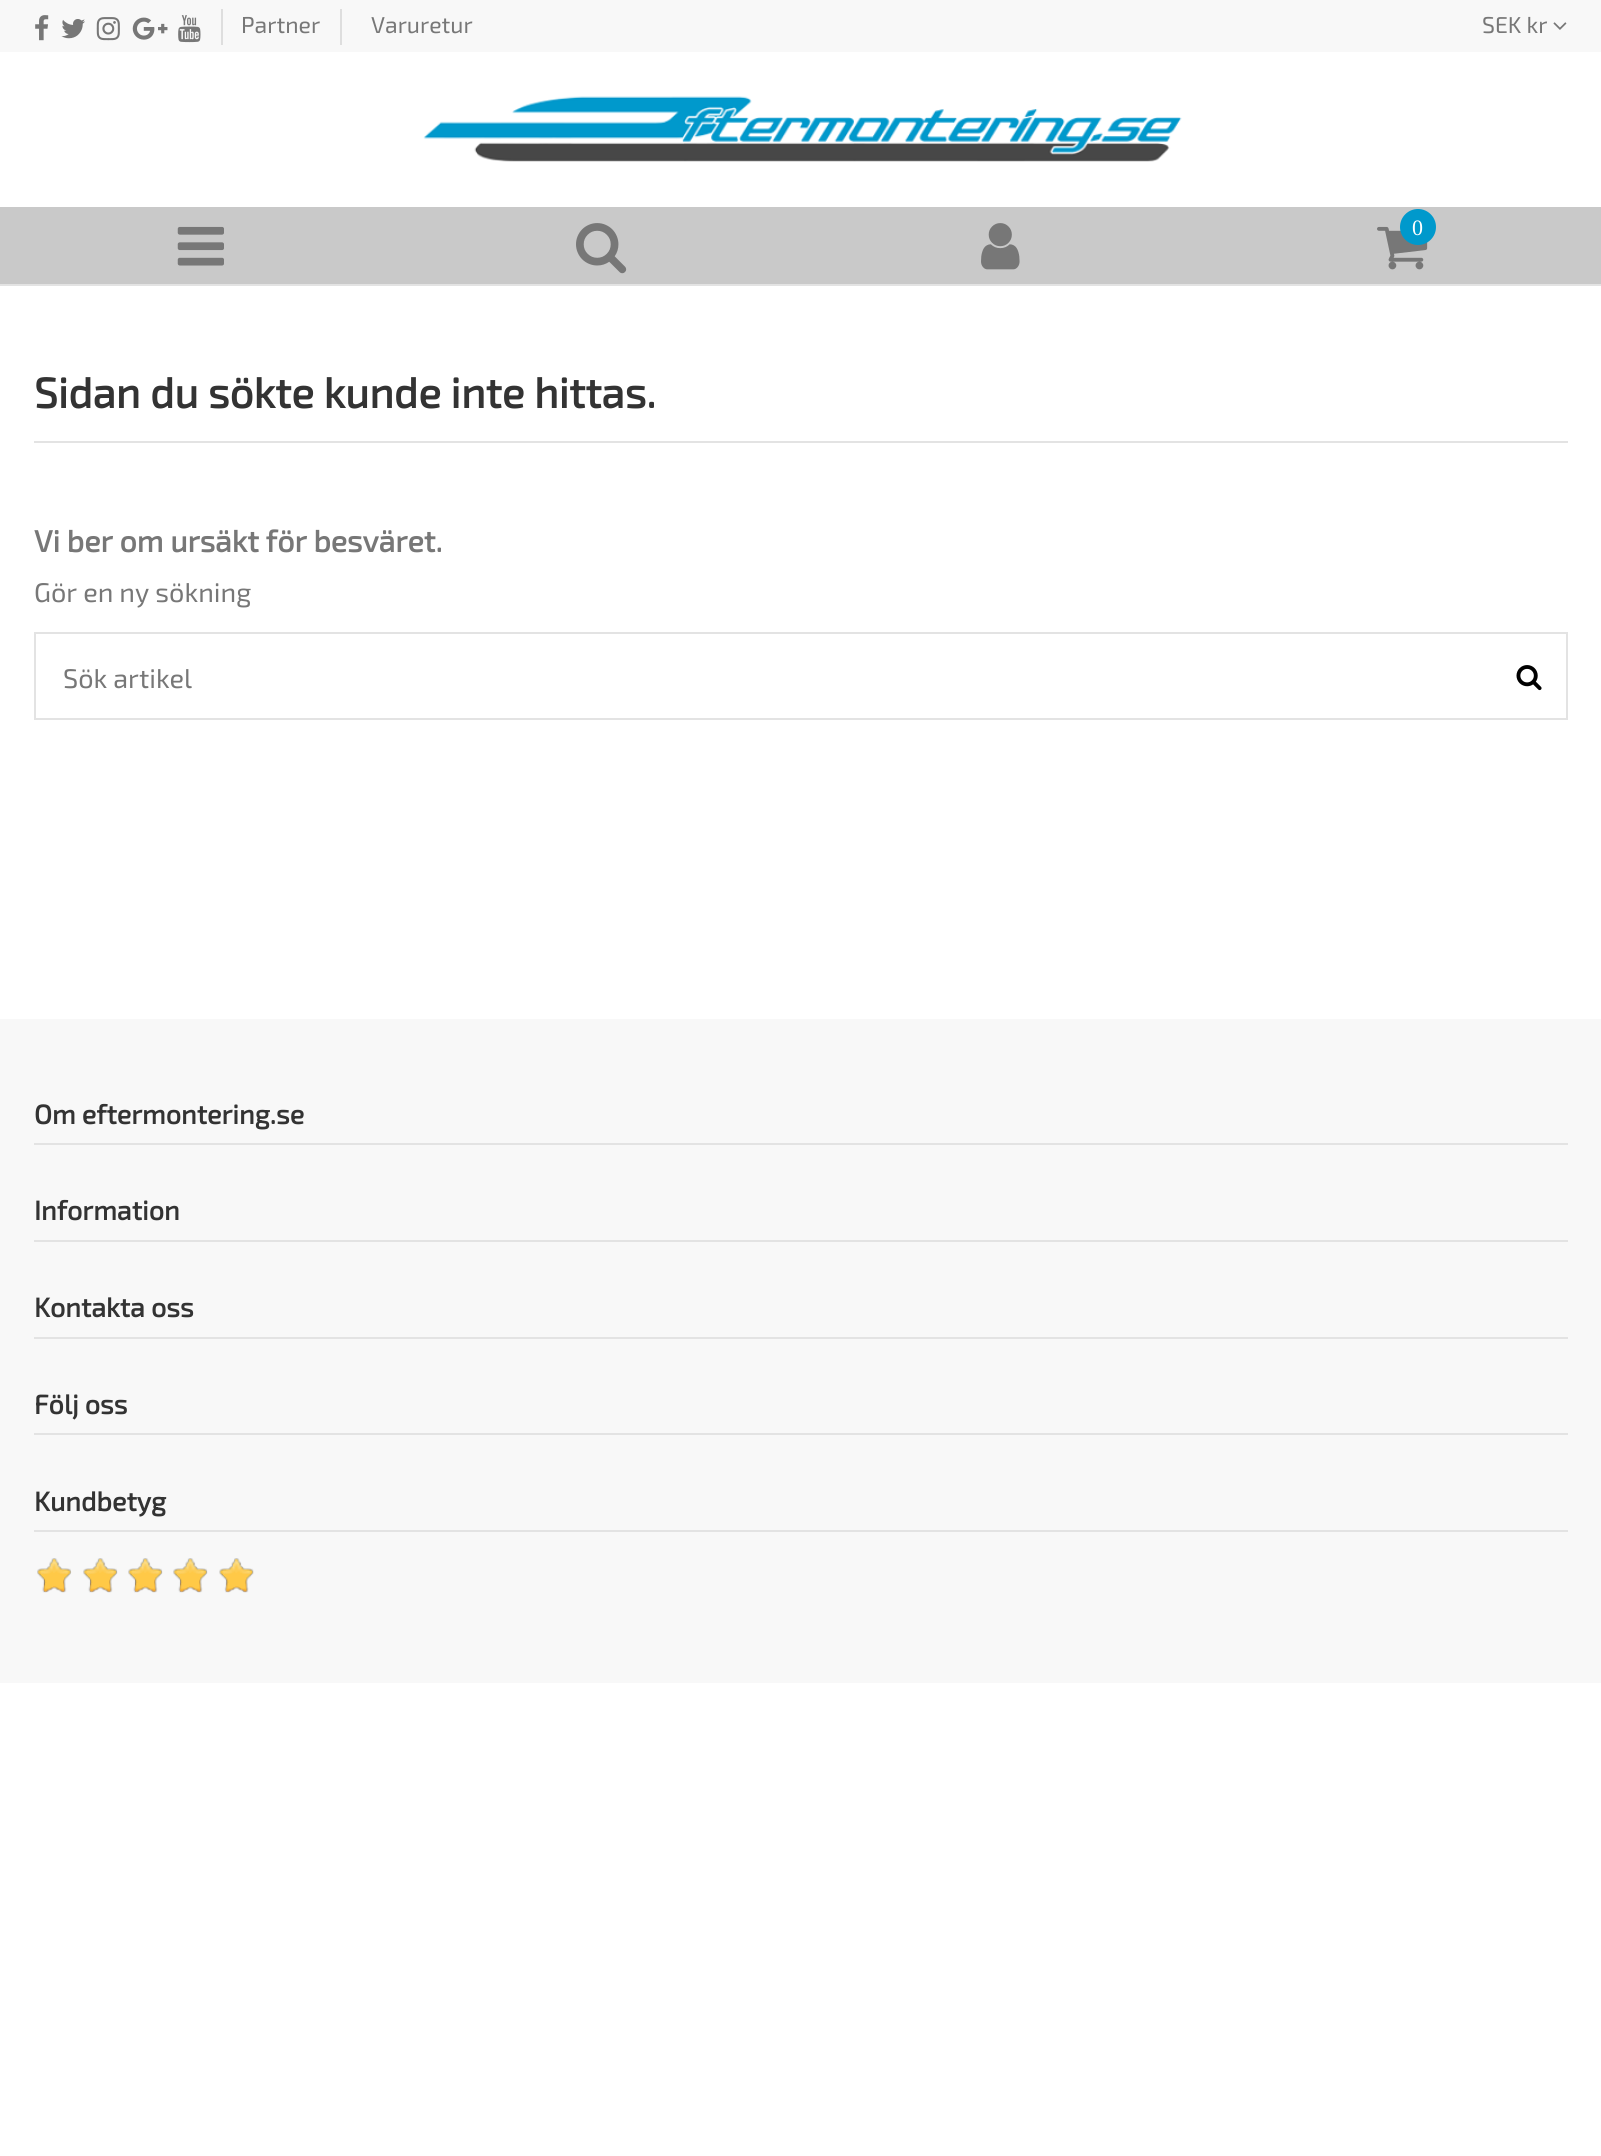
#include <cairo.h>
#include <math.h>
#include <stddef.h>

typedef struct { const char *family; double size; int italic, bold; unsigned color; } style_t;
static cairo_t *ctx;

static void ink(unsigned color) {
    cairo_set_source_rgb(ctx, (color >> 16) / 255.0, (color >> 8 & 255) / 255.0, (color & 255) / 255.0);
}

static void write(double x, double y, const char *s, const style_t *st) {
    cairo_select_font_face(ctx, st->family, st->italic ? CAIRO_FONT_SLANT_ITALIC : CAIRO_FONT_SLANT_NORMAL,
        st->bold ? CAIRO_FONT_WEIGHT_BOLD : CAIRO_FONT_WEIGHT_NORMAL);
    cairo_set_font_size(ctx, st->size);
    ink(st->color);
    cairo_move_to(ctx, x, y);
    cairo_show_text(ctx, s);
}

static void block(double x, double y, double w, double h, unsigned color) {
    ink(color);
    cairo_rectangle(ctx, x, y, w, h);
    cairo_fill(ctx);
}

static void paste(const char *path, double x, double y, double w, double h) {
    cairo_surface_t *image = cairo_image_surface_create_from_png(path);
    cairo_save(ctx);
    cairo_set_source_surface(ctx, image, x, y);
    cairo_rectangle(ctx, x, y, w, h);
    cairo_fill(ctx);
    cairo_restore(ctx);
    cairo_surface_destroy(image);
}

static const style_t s1 = {"Exo 2", 23, 0, 0, 0x777777};
static const style_t s2 = {"Liberation Serif", 22, 0, 0, 0xffffff};
static const style_t s3 = {"Exo 2", 42.4, 0, 1, 0x333333};
static const style_t s4 = {"Exo 2", 30.4, 0, 1, 0x777777};
static const style_t s5 = {"Exo 2", 27, 0, 0, 0x777777};
static const style_t s6 = {"Exo 2", 27, 0, 1, 0x333333};

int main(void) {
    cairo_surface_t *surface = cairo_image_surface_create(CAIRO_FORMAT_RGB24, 1601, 2156);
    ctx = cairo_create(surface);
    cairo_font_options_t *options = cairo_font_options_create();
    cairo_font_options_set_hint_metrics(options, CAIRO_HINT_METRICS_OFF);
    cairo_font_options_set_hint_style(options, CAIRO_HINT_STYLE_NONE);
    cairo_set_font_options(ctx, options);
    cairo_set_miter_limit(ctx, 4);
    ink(0xffffff);
    cairo_paint(ctx);
    block(0, 0, 1601, 52, 0xf8f8f8);
    paste("pic1.png", 35, 15, 14, 26);
    paste("pic2.png", 61, 19, 24, 20);
    paste("pic3.png", 96, 17, 24, 24);
    paste("pic4.png", 132, 17, 36, 23);
    paste("pic5.png", 178, 15, 23, 28);
    block(221, 9, 2, 36, 0xdedede);
    write(241, 33, "Partner", &s1);
    block(340, 9, 2, 36, 0xdedede);
    write(371, 33, "Varuretur", &s1);
    write(1482, 33, "SEK kr", &s1);
    paste("pic6.png", 1553, 22, 14, 8);
    block(0, 284, 1601, 2, 0xe3e3e3);
    paste("pic7.png", 423, 96, 759, 66);
    block(0, 207, 1601, 77, 0xc9c9c9);
    paste("pic8.png", 177, 226, 47, 40);
    paste("pic9.png", 576, 223, 51, 51);
    paste("pic10.png", 981, 223, 39, 47);
    paste("pic11.png", 1377, 226, 51, 44);
    ink(0x0099cc);
    cairo_arc(ctx, 1418, 227, 18, 0, 2 * M_PI);
    cairo_fill(ctx);
    write(1412, 235, "0", &s2);
    block(34, 441, 1534, 2, 0xe3e3e3);
    write(34, 408, "Sidan du sökte kunde inte hittas.", &s3);
    write(34, 552, "Vi ber om ursäkt för besväret.", &s4);
    write(34, 602, "Gör en ny sökning", &s5);
    cairo_rectangle(ctx, 35, 633, 1532, 86);
    ink(0xe3e3e3);
    cairo_stroke(ctx);
    write(63, 688, "Sök artikel", &s5);
    paste("pic12.png", 1516, 665, 26, 26);
    block(0, 1019, 1601, 664, 0xf8f8f8);
    block(34, 1143, 1534, 2, 0xe3e3e3);
    write(34, 1124, "Om eftermontering.se", &s6);
    block(34, 1240, 1534, 2, 0xe3e3e3);
    write(34, 1220, "Information", &s6);
    block(34, 1337, 1534, 2, 0xe3e3e3);
    write(34, 1317, "Kontakta oss", &s6);
    block(34, 1433, 1534, 2, 0xe3e3e3);
    write(34, 1414, "Följ oss", &s6);
    block(34, 1530, 1534, 2, 0xe3e3e3);
    write(34, 1511, "Kundbetyg", &s6);
    paste("pic13.png", 37, 1558, 217, 35);
    cairo_surface_write_to_png(surface, "screenshot.png");
    cairo_font_options_destroy(options);
    cairo_destroy(ctx);
    cairo_surface_destroy(surface);
    return 0;
}
